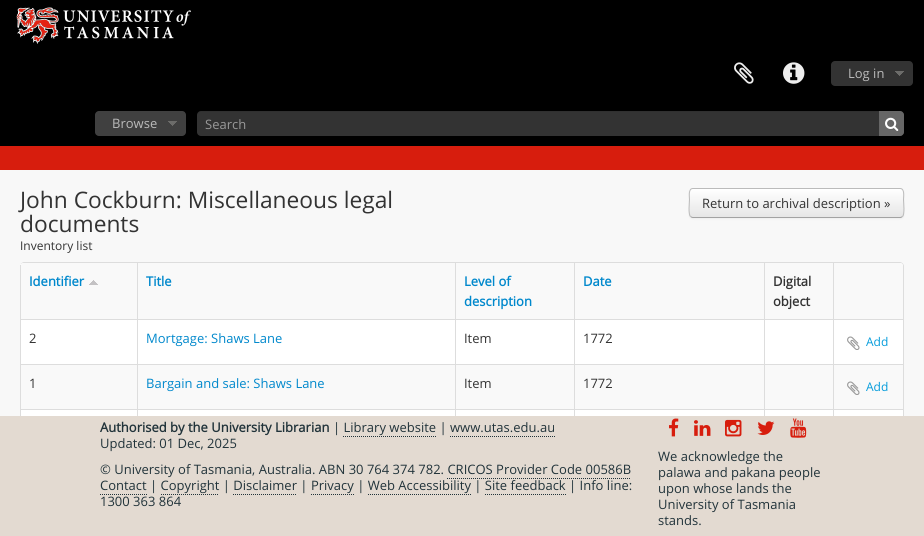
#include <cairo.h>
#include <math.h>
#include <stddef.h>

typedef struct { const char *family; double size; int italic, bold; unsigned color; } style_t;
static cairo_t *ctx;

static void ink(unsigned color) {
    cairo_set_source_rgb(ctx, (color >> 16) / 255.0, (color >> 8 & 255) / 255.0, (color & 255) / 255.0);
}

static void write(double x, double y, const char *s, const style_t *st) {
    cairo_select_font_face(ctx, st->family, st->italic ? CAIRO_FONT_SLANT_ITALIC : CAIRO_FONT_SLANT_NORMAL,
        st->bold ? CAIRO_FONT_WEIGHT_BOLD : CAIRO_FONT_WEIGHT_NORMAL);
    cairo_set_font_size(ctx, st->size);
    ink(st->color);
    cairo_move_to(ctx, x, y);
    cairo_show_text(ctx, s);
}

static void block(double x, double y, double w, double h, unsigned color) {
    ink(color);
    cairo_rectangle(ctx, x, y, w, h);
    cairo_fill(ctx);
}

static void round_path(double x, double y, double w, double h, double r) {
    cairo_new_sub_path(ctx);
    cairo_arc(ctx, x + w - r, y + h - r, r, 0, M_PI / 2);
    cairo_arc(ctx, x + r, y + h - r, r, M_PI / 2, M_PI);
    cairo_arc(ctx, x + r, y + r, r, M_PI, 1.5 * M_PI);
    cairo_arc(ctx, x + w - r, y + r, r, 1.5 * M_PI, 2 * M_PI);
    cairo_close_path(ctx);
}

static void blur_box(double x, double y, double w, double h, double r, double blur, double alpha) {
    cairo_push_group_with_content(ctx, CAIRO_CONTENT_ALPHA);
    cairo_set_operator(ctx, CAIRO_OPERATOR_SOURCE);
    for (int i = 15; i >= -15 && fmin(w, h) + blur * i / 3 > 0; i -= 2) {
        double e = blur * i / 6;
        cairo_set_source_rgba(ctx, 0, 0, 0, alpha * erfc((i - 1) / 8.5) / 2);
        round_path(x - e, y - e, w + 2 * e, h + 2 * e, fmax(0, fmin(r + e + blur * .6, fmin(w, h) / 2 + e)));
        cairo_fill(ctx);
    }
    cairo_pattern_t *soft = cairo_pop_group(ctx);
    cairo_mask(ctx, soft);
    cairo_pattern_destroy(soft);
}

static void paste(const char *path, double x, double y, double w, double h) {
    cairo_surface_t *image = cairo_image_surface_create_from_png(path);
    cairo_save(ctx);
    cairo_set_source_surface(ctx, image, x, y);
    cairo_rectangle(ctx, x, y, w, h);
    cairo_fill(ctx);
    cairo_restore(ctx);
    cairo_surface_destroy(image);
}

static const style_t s1 = {"Open Sans", 13, 0, 0, 0xbbbbbb};
static const style_t s2 = {"Open Sans", 13, 0, 0, 0x999999};
static const style_t s3 = {"Open Sans", 22.75, 0, 0, 0x333333};
static const style_t s4 = {"Open Sans", 12, 0, 0, 0x333333};
static const style_t s5 = {"Open Sans", 13, 0, 0, 0x333333};
static const style_t s6 = {"Open Sans", 13, 0, 1, 0x0088cc};
static const style_t s7 = {"Open Sans", 13, 0, 1, 0x333333};
static const style_t s8 = {"Open Sans", 13, 0, 0, 0x0088cc};
static const style_t s9 = {"Open Sans", 12, 0, 0, 0x049cdb};
static const style_t s10 = {"Open Sans", 13, 0, 1, 0x21333a};
static const style_t s11 = {"Open Sans", 13, 0, 0, 0x21333a};

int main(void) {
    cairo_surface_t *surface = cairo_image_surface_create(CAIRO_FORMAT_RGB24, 924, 536);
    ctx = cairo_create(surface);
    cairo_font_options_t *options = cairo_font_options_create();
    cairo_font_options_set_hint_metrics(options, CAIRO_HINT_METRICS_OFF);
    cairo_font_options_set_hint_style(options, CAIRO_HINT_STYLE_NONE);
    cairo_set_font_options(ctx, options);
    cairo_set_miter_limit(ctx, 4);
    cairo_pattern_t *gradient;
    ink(0xf8f8f8);
    cairo_paint(ctx);
    block(0, 0, 924, 146, 0x000000);
    paste("pic1.png", 16, 7, 175, 37);
    paste("pic2.png", 734, 62, 20, 22);
    paste("pic3.png", 783, 62, 22, 22);
    ink(0x333333);
    round_path(831, 61, 82, 25, 4);
    cairo_fill(ctx);
    paste("pic4.png", 895, 71, 9, 5);
    write(848, 78, "Log in", &s1);
    ink(0x404040);
    round_path(95, 111, 91, 25, 4);
    cairo_fill(ctx);
    paste("pic5.png", 168, 121, 9, 5);
    write(112, 128, "Browse", &s1);
    ink(0x333333);
    round_path(197, 111, 707, 25, 4);
    cairo_fill(ctx);
    cairo_set_source_rgba(ctx, 0, 0, 0, 0.07);
    cairo_new_path(ctx);
    cairo_move_to(ctx, 201, 112);
    cairo_line_to(ctx, 900, 112);
    cairo_curve_to(ctx, 902, 112, 904, 114, 904, 116);
    cairo_curve_to(ctx, 904, 113, 903, 111, 900, 111);
    cairo_line_to(ctx, 201, 111);
    cairo_line_to(ctx, 198, 112);
    cairo_line_to(ctx, 197, 113);
    cairo_line_to(ctx, 197, 116);
    cairo_curve_to(ctx, 197, 114, 199, 112, 201, 112);
    cairo_close_path(ctx);
    cairo_fill(ctx);
    write(205, 129, "Search", &s2);
    ink(0x666666);
    cairo_new_path(ctx);
    cairo_move_to(ctx, 879, 111);
    cairo_line_to(ctx, 900, 111);
    cairo_curve_to(ctx, 902, 111, 904, 113, 904, 115);
    cairo_line_to(ctx, 904, 132);
    cairo_curve_to(ctx, 904, 134, 902, 136, 900, 136);
    cairo_line_to(ctx, 879, 136);
    cairo_close_path(ctx);
    cairo_fill(ctx);
    paste("pic6.png", 885, 117, 14, 14);
    block(0, 146, 924, 24, 0xd71d0d);
    write(20, 208, "John Cockburn: Miscellaneous legal", &s3);
    write(20, 232, "documents", &s3);
    write(20, 250, "Inventory list", &s4);
    ink(0x000000);
    blur_box(689, 189, 215, 30, 4, 1, 0.05);
    cairo_save(ctx);
    round_path(689, 188, 215, 30, 4);
    cairo_clip(ctx);
    gradient = cairo_pattern_create_linear(797, 189, 797, 217);
    cairo_pattern_add_color_stop_rgba(gradient, 0, 1, 1, 1, 1);
    cairo_pattern_add_color_stop_rgba(gradient, 1, 0.902, 0.902, 0.902, 1);
    cairo_set_source(ctx, gradient);
    cairo_pattern_destroy(gradient);
    cairo_rectangle(ctx, 689, 189, 215, 28);
    cairo_fill(ctx);
    cairo_restore(ctx);
    cairo_new_path(ctx);
    cairo_move_to(ctx, 902.5, 216.5);
    cairo_curve_to(ctx, 902, 217, 901, 217.5, 900, 217.5);
    cairo_line_to(ctx, 693, 217.5);
    cairo_curve_to(ctx, 692, 217.5, 691, 217, 690.5, 216.5);
    ink(0xa2a2a2);
    cairo_set_line_width(ctx, 1);
    cairo_stroke(ctx);
    cairo_new_path(ctx);
    cairo_move_to(ctx, 690.5, 216.5);
    cairo_curve_to(ctx, 688, 214, 689.5, 202.5, 689.5, 199.5);
    cairo_curve_to(ctx, 689.5, 196.5, 688, 188.5, 693, 188.5);
    cairo_line_to(ctx, 900, 188.5);
    cairo_curve_to(ctx, 905, 188.5, 903.5, 196.5, 903.5, 199.5);
    cairo_curve_to(ctx, 903.5, 202.5, 905, 214, 902.5, 216.5);
    ink(0xbbbbbb);
    cairo_stroke(ctx);
    write(702, 208, "Return to archival description »", &s5);
    ink(0xffffff);
    round_path(20, 262, 884, 238, 4);
    cairo_fill(ctx);
    ink(0xdddddd);
    cairo_set_fill_rule(ctx, CAIRO_FILL_RULE_EVEN_ODD);
    cairo_new_path(ctx);
    cairo_move_to(ctx, 24, 262);
    cairo_line_to(ctx, 900, 262);
    cairo_curve_to(ctx, 902, 262, 904, 264, 904, 266);
    cairo_line_to(ctx, 904, 496);
    cairo_curve_to(ctx, 904, 498, 902, 500, 900, 500);
    cairo_line_to(ctx, 24, 500);
    cairo_curve_to(ctx, 22, 500, 20, 498, 20, 496);
    cairo_line_to(ctx, 20, 266);
    cairo_curve_to(ctx, 20, 264, 22, 262, 24, 262);
    cairo_close_path(ctx);
    cairo_move_to(ctx, 24, 263);
    cairo_line_to(ctx, 900, 263);
    cairo_curve_to(ctx, 902, 263, 903, 264, 903, 266);
    cairo_line_to(ctx, 903, 496);
    cairo_curve_to(ctx, 903, 498, 902, 499, 900, 499);
    cairo_line_to(ctx, 24, 499);
    cairo_curve_to(ctx, 22, 499, 20, 498, 20, 496);
    cairo_line_to(ctx, 20, 266);
    cairo_curve_to(ctx, 20, 264, 22, 263, 24, 263);
    cairo_close_path(ctx);
    cairo_fill(ctx);
    ink(0xf9f9f9);
    cairo_new_path(ctx);
    cairo_move_to(ctx, 24, 263);
    cairo_line_to(ctx, 137, 263);
    cairo_line_to(ctx, 137, 319);
    cairo_line_to(ctx, 20, 319);
    cairo_line_to(ctx, 20, 267);
    cairo_curve_to(ctx, 20, 265, 22, 263, 24, 263);
    cairo_close_path(ctx);
    cairo_fill(ctx);
    block(20, 265, 1, 54, 0xdddddd);
    write(29, 286, "Identifier", &s6);
    paste("pic7.png", 89, 280, 9, 5);
    block(138, 263, 317, 56, 0xf9f9f9);
    block(137, 263, 1, 56, 0xdddddd);
    write(146, 286, "Title", &s6);
    block(456, 263, 118, 56, 0xf9f9f9);
    block(455, 263, 1, 56, 0xdddddd);
    write(464, 286, "Level of", &s6);
    write(464, 306, "description", &s6);
    block(575, 263, 189, 56, 0xf9f9f9);
    block(574, 263, 1, 56, 0xdddddd);
    write(583, 286, "Date", &s6);
    block(765, 263, 68, 56, 0xf9f9f9);
    block(764, 263, 1, 56, 0xdddddd);
    write(773, 286, "Digital", &s7);
    write(773, 306, "object", &s7);
    ink(0xf9f9f9);
    cairo_new_path(ctx);
    cairo_move_to(ctx, 833, 263);
    cairo_line_to(ctx, 899, 263);
    cairo_curve_to(ctx, 901, 263, 903, 265, 903, 267);
    cairo_line_to(ctx, 903, 319);
    cairo_line_to(ctx, 833, 319);
    cairo_close_path(ctx);
    cairo_fill(ctx);
    block(833, 263, 1, 56, 0xdddddd);
    block(20, 319, 883, 1, 0xdddddd);
    block(20, 319, 1, 45, 0xdddddd);
    write(29, 343, "2", &s5);
    block(137, 319, 1, 45, 0xdddddd);
    write(146, 343, "Mortgage: Shaws Lane", &s8);
    block(455, 319, 1, 45, 0xdddddd);
    write(464, 343, "Item", &s5);
    block(574, 319, 1, 45, 0xdddddd);
    write(583, 343, "1772", &s5);
    block(764, 319, 1, 45, 0xdddddd);
    block(833, 319, 1, 45, 0xdddddd);
    paste("pic8.png", 847, 336, 13, 14);
    write(866, 346, "Add", &s9);
    block(21, 365, 116, 44, 0xf9f9f9);
    block(20, 364, 883, 1, 0xdddddd);
    block(20, 364, 1, 45, 0xdddddd);
    write(29, 388, "1", &s5);
    block(138, 365, 317, 44, 0xf9f9f9);
    block(137, 364, 1, 45, 0xdddddd);
    write(146, 388, "Bargain and sale: Shaws Lane", &s8);
    block(456, 365, 118, 44, 0xf9f9f9);
    block(455, 364, 1, 45, 0xdddddd);
    write(464, 388, "Item", &s5);
    block(575, 365, 189, 44, 0xf9f9f9);
    block(574, 364, 1, 45, 0xdddddd);
    write(583, 388, "1772", &s5);
    block(765, 365, 68, 44, 0xf9f9f9);
    block(764, 364, 1, 45, 0xdddddd);
    block(834, 365, 69, 44, 0xf9f9f9);
    block(833, 364, 1, 45, 0xdddddd);
    paste("pic9.png", 847, 381, 13, 14);
    write(866, 391, "Add", &s9);
    block(20, 409, 883, 1, 0xdddddd);
    block(20, 409, 1, 7, 0xdddddd);
    block(137, 409, 1, 7, 0xdddddd);
    block(455, 409, 1, 7, 0xdddddd);
    block(574, 409, 1, 7, 0xdddddd);
    block(764, 409, 1, 7, 0xdddddd);
    block(833, 409, 1, 7, 0xdddddd);
    block(0, 416, 924, 120, 0xe3dad1);
    write(100, 432, "Authorised by the University Librarian", &s10);
    write(333, 432, "| Library website | www.utas.edu.au", &s11);
    cairo_new_path(ctx);
    cairo_move_to(ctx, 343, 436.5);
    cairo_line_to(ctx, 436, 436.5);
    cairo_set_dash(ctx, (double[]){1, 1}, 2, 0);
    cairo_stroke(ctx);
    cairo_new_path(ctx);
    cairo_move_to(ctx, 450, 436.5);
    cairo_line_to(ctx, 555, 436.5);
    cairo_stroke(ctx);
    write(100, 448, "Updated: 01 Dec, 2025", &s11);
    write(100, 474, "© University of Tasmania, Australia. ABN 30 764 374 782. CRICOS Provider Code 00586B", &s11);
    cairo_new_path(ctx);
    cairo_move_to(ctx, 447, 478.5);
    cairo_line_to(ctx, 631, 478.5);
    cairo_stroke(ctx);
    write(100, 490, "Contact | Copyright | Disclaimer | Privacy | Web Accessibility | Site feedback | Info line:", &s11);
    cairo_new_path(ctx);
    cairo_move_to(ctx, 100, 494.5);
    cairo_line_to(ctx, 147, 494.5);
    cairo_stroke(ctx);
    cairo_new_path(ctx);
    cairo_move_to(ctx, 161, 494.5);
    cairo_line_to(ctx, 219, 494.5);
    cairo_stroke(ctx);
    cairo_new_path(ctx);
    cairo_move_to(ctx, 233, 494.5);
    cairo_line_to(ctx, 297, 494.5);
    cairo_stroke(ctx);
    cairo_new_path(ctx);
    cairo_move_to(ctx, 311, 494.5);
    cairo_line_to(ctx, 354, 494.5);
    cairo_stroke(ctx);
    cairo_new_path(ctx);
    cairo_move_to(ctx, 368, 494.5);
    cairo_line_to(ctx, 471, 494.5);
    cairo_stroke(ctx);
    cairo_new_path(ctx);
    cairo_move_to(ctx, 485, 494.5);
    cairo_line_to(ctx, 566, 494.5);
    cairo_stroke(ctx);
    write(100, 506, "1300 363 864", &s11);
    paste("pic10.png", 669, 418, 10, 19);
    paste("pic11.png", 694, 420, 17, 16);
    paste("pic12.png", 725, 419, 17, 18);
    paste("pic13.png", 757, 421, 18, 14);
    paste("pic14.png", 790, 418, 17, 20);
    write(658, 461, "We acknowledge the", &s11);
    write(658, 477, "palawa and pakana people", &s11);
    write(658, 493, "upon whose lands the", &s11);
    write(658, 509, "University of Tasmania", &s11);
    write(658, 525, "stands.", &s11);
    cairo_surface_write_to_png(surface, "screenshot.png");
    cairo_font_options_destroy(options);
    cairo_destroy(ctx);
    cairo_surface_destroy(surface);
    return 0;
}
